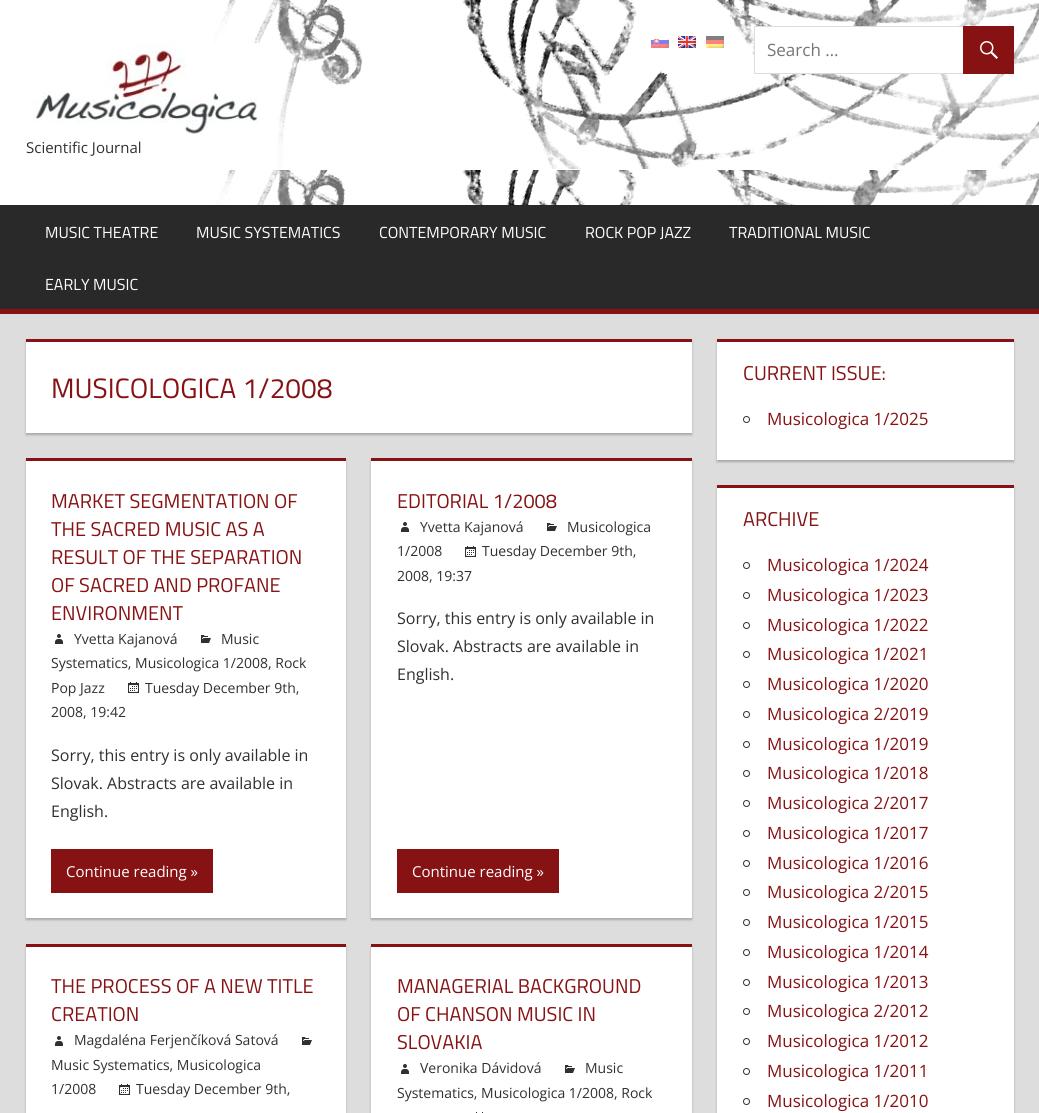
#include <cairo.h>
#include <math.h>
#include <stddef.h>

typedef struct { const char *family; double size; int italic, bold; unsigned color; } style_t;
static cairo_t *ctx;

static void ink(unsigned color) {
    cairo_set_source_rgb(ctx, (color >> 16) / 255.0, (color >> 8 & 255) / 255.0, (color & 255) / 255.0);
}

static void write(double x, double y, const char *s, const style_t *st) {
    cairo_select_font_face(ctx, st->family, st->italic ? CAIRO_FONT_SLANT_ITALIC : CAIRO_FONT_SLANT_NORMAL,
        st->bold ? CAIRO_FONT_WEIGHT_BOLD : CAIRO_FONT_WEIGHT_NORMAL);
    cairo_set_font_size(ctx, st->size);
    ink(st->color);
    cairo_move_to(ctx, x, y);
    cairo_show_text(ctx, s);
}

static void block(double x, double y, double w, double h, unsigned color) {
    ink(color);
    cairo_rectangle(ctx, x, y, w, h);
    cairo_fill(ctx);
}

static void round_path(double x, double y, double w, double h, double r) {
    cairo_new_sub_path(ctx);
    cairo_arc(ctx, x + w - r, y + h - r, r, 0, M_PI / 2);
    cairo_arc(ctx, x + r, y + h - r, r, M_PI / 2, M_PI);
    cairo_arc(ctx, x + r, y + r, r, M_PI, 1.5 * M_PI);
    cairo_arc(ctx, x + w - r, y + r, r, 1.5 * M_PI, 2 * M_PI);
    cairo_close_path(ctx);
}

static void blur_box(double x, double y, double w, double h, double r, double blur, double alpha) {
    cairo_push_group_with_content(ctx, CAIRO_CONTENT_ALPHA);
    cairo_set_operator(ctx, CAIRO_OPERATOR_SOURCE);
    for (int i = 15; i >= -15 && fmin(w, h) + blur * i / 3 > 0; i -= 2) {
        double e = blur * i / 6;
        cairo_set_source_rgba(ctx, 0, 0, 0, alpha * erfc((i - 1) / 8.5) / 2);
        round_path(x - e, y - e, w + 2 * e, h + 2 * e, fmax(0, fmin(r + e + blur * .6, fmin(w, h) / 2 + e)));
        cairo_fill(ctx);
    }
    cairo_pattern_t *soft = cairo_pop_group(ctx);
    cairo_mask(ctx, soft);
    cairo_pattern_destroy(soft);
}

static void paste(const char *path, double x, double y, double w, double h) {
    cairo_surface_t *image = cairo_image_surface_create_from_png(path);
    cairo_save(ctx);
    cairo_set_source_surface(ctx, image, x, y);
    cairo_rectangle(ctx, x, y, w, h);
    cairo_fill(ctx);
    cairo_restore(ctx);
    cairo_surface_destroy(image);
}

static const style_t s1 = {"Open Sans", 17, 0, 0, 0x757575};
static const style_t s2 = {"Open Sans", 15, 0, 0, 0x303030};
static const style_t s3 = {"Titillium Web", 16, 0, 0, 0xffffff};
static const style_t s4 = {"Titillium Web", 28, 0, 0, 0x861214};
static const style_t s5 = {"Titillium Web", 20, 0, 0, 0x861214};
static const style_t s6 = {"Open Sans", 14, 0, 0, 0x303030};
static const style_t s7 = {"Open Sans", 16, 0, 0, 0x303030};
static const style_t s8 = {"Open Sans", 15, 0, 0, 0xffffff};
static const style_t s9 = {"Open Sans", 17, 0, 0, 0x861214};

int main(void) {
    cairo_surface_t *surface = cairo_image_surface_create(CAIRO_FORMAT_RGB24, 1039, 1113);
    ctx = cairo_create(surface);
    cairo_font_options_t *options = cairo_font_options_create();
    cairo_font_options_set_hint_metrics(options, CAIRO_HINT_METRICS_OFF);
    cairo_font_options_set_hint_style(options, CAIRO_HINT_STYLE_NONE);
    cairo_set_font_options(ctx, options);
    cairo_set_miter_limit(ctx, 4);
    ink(0xdddddd);
    cairo_paint(ctx);
    block(0, 0, 212, 205, 0xffffff);
    paste("pic1.png", 212, 0, 827, 205);
    paste("pic2.png", 651, 38, 18, 10);
    paste("pic3.png", 678, 36, 18, 12);
    paste("pic4.png", 706, 36, 18, 12);
    block(755, 27, 208, 46, 0xffffff);
    cairo_rectangle(ctx, 754.5, 26.5, 259, 47);
    ink(0xdddddd);
    cairo_set_line_width(ctx, 1);
    cairo_stroke(ctx);
    write(767, 56, "Search …", &s1);
    block(963, 26, 51, 48, 0x861214);
    paste("pic5.png", 980, 41, 18, 18);
    paste("pic6.png", 34, 43, 225, 91);
    write(26, 153, "Scientific Journal", &s2);
    block(0, 206, 1039, 103, 0x292929);
    block(0, 205, 1039, 1, 0x272727);
    block(0, 309, 1039, 5, 0x861214);
    write(45, 238, "MUSIC THEATRE", &s3);
    write(196, 238, "MUSIC SYSTEMATICS", &s3);
    write(379, 238, "CONTEMPORARY MUSIC", &s3);
    write(585, 238, "ROCK POP JAZZ", &s3);
    write(729, 238, "TRADITIONAL MUSIC", &s3);
    write(45, 290, "EARLY MUSIC", &s3);
    ink(0xaaaaaa);
    blur_box(26, 341, 666, 94, 0, 1, 1);
    block(26, 342, 666, 91, 0xffffff);
    block(26, 339, 666, 3, 0x861214);
    write(51, 398, "MUSICOLOGICA 1/2008", &s4);
    ink(0xaaaaaa);
    blur_box(26, 460, 320, 460, 0, 1, 1);
    block(26, 461, 320, 457, 0xffffff);
    block(26, 458, 320, 3, 0x861214);
    write(51, 508, "MARKET SEGMENTATION OF", &s5);
    write(51, 536, "THE SACRED MUSIC AS A", &s5);
    write(51, 564, "RESULT OF THE SEPARATION", &s5);
    write(51, 592, "OF SACRED AND PROFANE", &s5);
    write(51, 620, "ENVIRONMENT", &s5);
    paste("pic7.png", 201, 635, 10, 8);
    write(221, 644, "Music", &s6);
    write(51, 668, "Systematics, Musicologica 1/2008, Rock", &s6);
    write(51, 693, "Pop Jazz", &s6);
    paste("pic8.png", 55, 634, 8, 10);
    write(74, 644, "Yvetta Kajanová", &s6);
    paste("pic9.png", 128, 682, 11, 11);
    write(145, 693, "Tuesday December 9th,", &s6);
    write(51, 717, "2008, 19:42", &s6);
    write(51, 761, "Sorry, this entry is only available in", &s7);
    write(51, 789, "Slovak. Abstracts are available in", &s7);
    write(51, 817, "English.", &s7);
    block(51, 849, 162, 44, 0x861214);
    write(66, 877, "Continue reading »", &s8);
    ink(0xaaaaaa);
    blur_box(371, 460, 321, 460, 0, 1, 1);
    block(371, 461, 321, 457, 0xffffff);
    block(371, 458, 321, 3, 0x861214);
    write(397, 508, "EDITORIAL 1/2008", &s5);
    paste("pic7.png", 547, 523, 10, 8);
    write(567, 532, "Musicologica", &s6);
    write(397, 556, "1/2008", &s6);
    paste("pic8.png", 401, 522, 8, 10);
    write(420, 532, "Yvetta Kajanová", &s6);
    paste("pic9.png", 465, 546, 11, 11);
    write(482, 556, "Tuesday December 9th,", &s6);
    write(397, 581, "2008, 19:37", &s6);
    write(397, 624, "Sorry, this entry is only available in", &s7);
    write(397, 652, "Slovak. Abstracts are available in", &s7);
    write(397, 680, "English.", &s7);
    block(397, 849, 162, 44, 0x861214);
    write(412, 877, "Continue reading »", &s8);
    ink(0xaaaaaa);
    blur_box(26, 946, 320, 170, 0, 1, 1);
    block(26, 947, 320, 166, 0xffffff);
    block(26, 944, 320, 3, 0x861214);
    write(51, 993, "THE PROCESS OF A NEW TITLE", &s5);
    write(51, 1021, "CREATION", &s5);
    paste("pic8.png", 55, 1036, 8, 10);
    write(74, 1045, "Magdaléna Ferjenčíková Satová", &s6);
    paste("pic7.png", 302, 1037, 10, 8);
    write(51, 1070, "Music Systematics, Musicologica", &s6);
    write(51, 1094, "1/2008", &s6);
    paste("pic9.png", 119, 1084, 11, 11);
    write(136, 1094, "Tuesday December 9th,", &s6);
    ink(0xaaaaaa);
    blur_box(371, 946, 321, 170, 0, 1, 1);
    block(371, 947, 321, 166, 0xffffff);
    block(371, 944, 321, 3, 0x861214);
    write(397, 993, "MANAGERIAL BACKGROUND", &s5);
    write(397, 1021, "OF CHANSON MUSIC IN", &s5);
    write(397, 1049, "SLOVAKIA", &s5);
    paste("pic7.png", 565, 1065, 10, 8);
    write(585, 1073, "Music", &s6);
    write(397, 1098, "Systematics, Musicologica 1/2008, Rock", &s6);
    paste("pic8.png", 401, 1064, 8, 10);
    write(420, 1073, "Veronika Dávidová", &s6);
    paste("pic10.png", 476, 1112, 7, 1);
    ink(0xaaaaaa);
    blur_box(717, 341, 297, 121, 0, 1, 1);
    block(717, 342, 297, 118, 0xffffff);
    block(717, 339, 297, 3, 0x861214);
    write(743, 380, "CURRENT ISSUE:", &s5);
    cairo_new_path(ctx);
    cairo_arc(ctx, 746.5, 419.5, 3, 0, 2 * M_PI);
    ink(0x303030);
    cairo_stroke(ctx);
    write(767, 425, "Musicologica 1/2025", &s9);
    ink(0xaaaaaa);
    blur_box(717, 487, 297, 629, 0, 1, 1);
    block(717, 488, 297, 625, 0xffffff);
    block(717, 485, 297, 3, 0x861214);
    write(743, 526, "ARCHIVE", &s5);
    cairo_new_path(ctx);
    cairo_arc(ctx, 746.5, 565.5, 3, 0, 2 * M_PI);
    ink(0x303030);
    cairo_stroke(ctx);
    write(767, 571, "Musicologica 1/2024", &s9);
    cairo_new_path(ctx);
    cairo_arc(ctx, 746.5, 595.5, 3, 0, 2 * M_PI);
    ink(0x303030);
    cairo_stroke(ctx);
    write(767, 601, "Musicologica 1/2023", &s9);
    cairo_new_path(ctx);
    cairo_arc(ctx, 746.5, 625.5, 3, 0, 2 * M_PI);
    ink(0x303030);
    cairo_stroke(ctx);
    write(767, 631, "Musicologica 1/2022", &s9);
    cairo_new_path(ctx);
    cairo_arc(ctx, 746.5, 654.5, 3, 0, 2 * M_PI);
    ink(0x303030);
    cairo_stroke(ctx);
    write(767, 660, "Musicologica 1/2021", &s9);
    cairo_new_path(ctx);
    cairo_arc(ctx, 746.5, 684.5, 3, 0, 2 * M_PI);
    ink(0x303030);
    cairo_stroke(ctx);
    write(767, 690, "Musicologica 1/2020", &s9);
    cairo_new_path(ctx);
    cairo_arc(ctx, 746.5, 714.5, 3, 0, 2 * M_PI);
    ink(0x303030);
    cairo_stroke(ctx);
    write(767, 720, "Musicologica 2/2019", &s9);
    cairo_new_path(ctx);
    cairo_arc(ctx, 746.5, 744.5, 3, 0, 2 * M_PI);
    ink(0x303030);
    cairo_stroke(ctx);
    write(767, 750, "Musicologica 1/2019", &s9);
    cairo_new_path(ctx);
    cairo_arc(ctx, 746.5, 773.5, 3, 0, 2 * M_PI);
    ink(0x303030);
    cairo_stroke(ctx);
    write(767, 779, "Musicologica 1/2018", &s9);
    cairo_new_path(ctx);
    cairo_arc(ctx, 746.5, 803.5, 3, 0, 2 * M_PI);
    ink(0x303030);
    cairo_stroke(ctx);
    write(767, 809, "Musicologica 2/2017", &s9);
    cairo_new_path(ctx);
    cairo_arc(ctx, 746.5, 833.5, 3, 0, 2 * M_PI);
    ink(0x303030);
    cairo_stroke(ctx);
    write(767, 839, "Musicologica 1/2017", &s9);
    cairo_new_path(ctx);
    cairo_arc(ctx, 746.5, 863.5, 3, 0, 2 * M_PI);
    ink(0x303030);
    cairo_stroke(ctx);
    write(767, 869, "Musicologica 1/2016", &s9);
    cairo_new_path(ctx);
    cairo_arc(ctx, 746.5, 892.5, 3, 0, 2 * M_PI);
    ink(0x303030);
    cairo_stroke(ctx);
    write(767, 898, "Musicologica 2/2015", &s9);
    cairo_new_path(ctx);
    cairo_arc(ctx, 746.5, 922.5, 3, 0, 2 * M_PI);
    ink(0x303030);
    cairo_stroke(ctx);
    write(767, 928, "Musicologica 1/2015", &s9);
    cairo_new_path(ctx);
    cairo_arc(ctx, 746.5, 952.5, 3, 0, 2 * M_PI);
    ink(0x303030);
    cairo_stroke(ctx);
    write(767, 958, "Musicologica 1/2014", &s9);
    cairo_new_path(ctx);
    cairo_arc(ctx, 746.5, 982.5, 3, 0, 2 * M_PI);
    ink(0x303030);
    cairo_stroke(ctx);
    write(767, 988, "Musicologica 1/2013", &s9);
    cairo_new_path(ctx);
    cairo_arc(ctx, 746.5, 1011.5, 3, 0, 2 * M_PI);
    ink(0x303030);
    cairo_stroke(ctx);
    write(767, 1017, "Musicologica 2/2012", &s9);
    cairo_new_path(ctx);
    cairo_arc(ctx, 746.5, 1041.5, 3, 0, 2 * M_PI);
    ink(0x303030);
    cairo_stroke(ctx);
    write(767, 1047, "Musicologica 1/2012", &s9);
    cairo_new_path(ctx);
    cairo_arc(ctx, 746.5, 1071.5, 3, 0, 2 * M_PI);
    ink(0x303030);
    cairo_stroke(ctx);
    write(767, 1077, "Musicologica 1/2011", &s9);
    cairo_new_path(ctx);
    cairo_arc(ctx, 746.5, 1101.5, 3, 0, 2 * M_PI);
    ink(0x303030);
    cairo_stroke(ctx);
    write(767, 1107, "Musicologica 1/2010", &s9);
    cairo_surface_write_to_png(surface, "screenshot.png");
    cairo_font_options_destroy(options);
    cairo_destroy(ctx);
    cairo_surface_destroy(surface);
    return 0;
}
